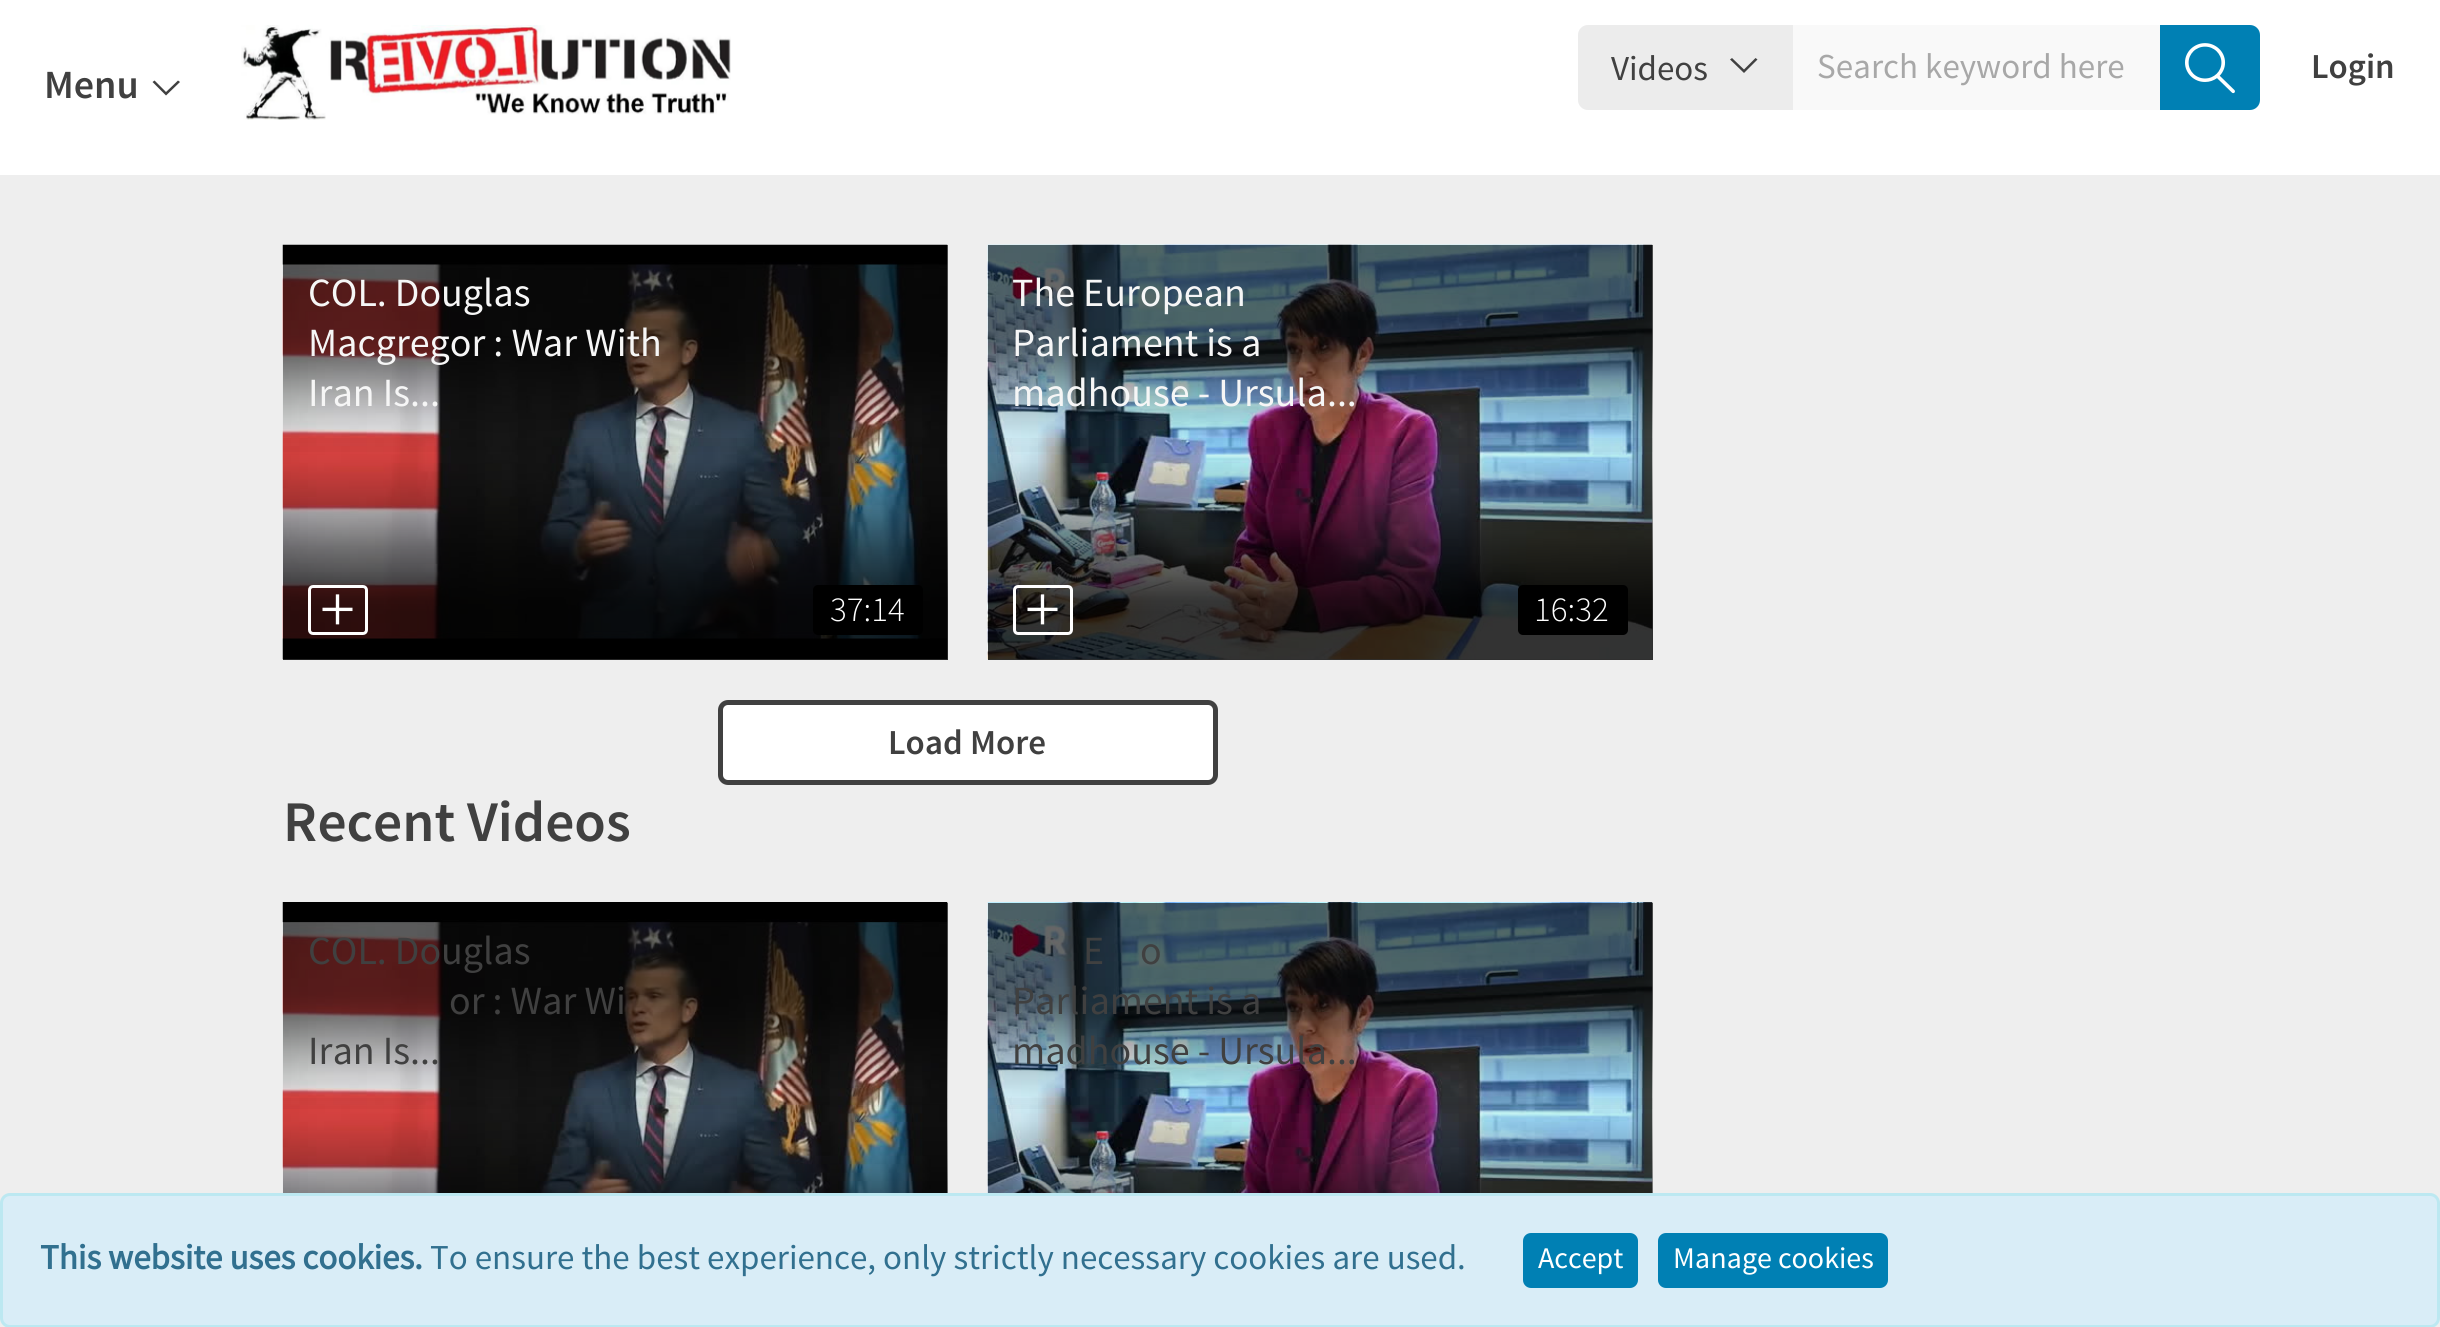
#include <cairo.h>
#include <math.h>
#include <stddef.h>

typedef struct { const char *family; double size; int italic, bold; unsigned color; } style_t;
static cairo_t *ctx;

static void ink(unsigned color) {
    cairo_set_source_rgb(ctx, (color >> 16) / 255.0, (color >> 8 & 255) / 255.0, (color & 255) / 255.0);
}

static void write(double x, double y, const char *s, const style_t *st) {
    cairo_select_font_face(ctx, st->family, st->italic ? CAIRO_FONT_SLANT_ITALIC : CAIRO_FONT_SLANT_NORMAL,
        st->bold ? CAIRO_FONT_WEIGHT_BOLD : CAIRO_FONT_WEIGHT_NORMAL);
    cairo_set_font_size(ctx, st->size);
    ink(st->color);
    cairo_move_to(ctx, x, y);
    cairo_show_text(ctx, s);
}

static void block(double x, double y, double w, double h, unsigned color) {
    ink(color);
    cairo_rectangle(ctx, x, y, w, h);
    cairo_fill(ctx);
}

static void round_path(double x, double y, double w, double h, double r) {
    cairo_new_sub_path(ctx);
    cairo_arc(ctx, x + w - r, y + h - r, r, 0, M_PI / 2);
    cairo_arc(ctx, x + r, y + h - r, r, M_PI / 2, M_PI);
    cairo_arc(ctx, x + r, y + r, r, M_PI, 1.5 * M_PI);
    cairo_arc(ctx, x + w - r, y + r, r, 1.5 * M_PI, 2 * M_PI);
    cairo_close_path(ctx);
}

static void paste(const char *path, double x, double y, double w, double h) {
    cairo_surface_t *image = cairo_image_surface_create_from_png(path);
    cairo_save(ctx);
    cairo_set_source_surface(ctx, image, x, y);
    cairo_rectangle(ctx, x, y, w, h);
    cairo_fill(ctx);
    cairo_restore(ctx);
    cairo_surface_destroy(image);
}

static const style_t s1 = {"Source Sans Pro SemiBold", 40, 0, 0, 0x404040};
static const style_t s2 = {"Source Sans Pro", 35, 0, 0, 0x404040};
static const style_t s3 = {"Source Sans Pro", 35, 0, 0, 0xa8a8a8};
static const style_t s4 = {"Source Sans Pro SemiBold", 35, 0, 0, 0x404040};
static const style_t s5 = {"Source Sans Pro", 40, 0, 0, 0xf6f6f6};
static const style_t s6 = {"Source Sans Pro Light", 35, 0, 0, 0xffffff};
static const style_t s7 = {"Source Sans Pro SemiBold", 57.5, 0, 0, 0x404040};
static const style_t s8 = {"Source Sans Pro", 40, 0, 0, 0x404040};
static const style_t s9 = {"Source Sans Pro", 35, 0, 1, 0x31708f};
static const style_t s10 = {"Source Sans Pro", 35, 0, 0, 0x31708f};
static const style_t s11 = {"Source Sans Pro", 30, 0, 0, 0xffffff};

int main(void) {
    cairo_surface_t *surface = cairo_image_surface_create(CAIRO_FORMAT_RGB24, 2440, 1327);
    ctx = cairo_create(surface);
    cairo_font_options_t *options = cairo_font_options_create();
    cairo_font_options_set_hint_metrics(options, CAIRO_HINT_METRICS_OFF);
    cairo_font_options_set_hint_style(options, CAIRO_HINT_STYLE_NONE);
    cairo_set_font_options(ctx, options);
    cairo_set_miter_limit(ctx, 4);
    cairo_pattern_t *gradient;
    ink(0xeeeeee);
    cairo_paint(ctx);
    block(0, 0, 2440, 175, 0xffffff);
    write(44, 98, "Menu", &s1);
    cairo_new_path(ctx);
    cairo_move_to(ctx, 178, 80.5);
    cairo_line_to(ctx, 166, 92);
    cairo_line_to(ctx, 154.5, 80.5);
    cairo_line_to(ctx, 152.5, 82);
    cairo_line_to(ctx, 166, 95.5);
    cairo_line_to(ctx, 180, 82);
    cairo_close_path(ctx);
    cairo_fill(ctx);
    paste("pic1.png", 241, 25, 490, 95);
    ink(0xf9f9f9);
    round_path(1578, 25, 682, 85, 10);
    cairo_fill(ctx);
    ink(0xececec);
    cairo_new_path(ctx);
    cairo_move_to(ctx, 1588, 25);
    cairo_line_to(ctx, 1793, 25);
    cairo_line_to(ctx, 1793, 110);
    cairo_line_to(ctx, 1588, 110);
    cairo_curve_to(ctx, 1582.5, 110, 1578, 105.5, 1578, 100);
    cairo_line_to(ctx, 1578, 35);
    cairo_curve_to(ctx, 1578, 29.5, 1582.5, 25, 1588, 25);
    cairo_close_path(ctx);
    cairo_fill(ctx);
    write(1611, 80, "Videos", &s2);
    cairo_new_path(ctx);
    cairo_move_to(ctx, 1755.5, 58);
    cairo_line_to(ctx, 1744, 69.5);
    cairo_line_to(ctx, 1732, 58);
    cairo_line_to(ctx, 1730, 59.5);
    cairo_line_to(ctx, 1744, 73);
    cairo_line_to(ctx, 1757.5, 59.5);
    cairo_close_path(ctx);
    cairo_fill(ctx);
    write(1817, 78, "Search keyword here", &s3);
    ink(0x0080b4);
    cairo_new_path(ctx);
    cairo_move_to(ctx, 2160, 25);
    cairo_line_to(ctx, 2250, 25);
    cairo_curve_to(ctx, 2255.5, 25, 2260, 29.5, 2260, 35);
    cairo_line_to(ctx, 2260, 100);
    cairo_curve_to(ctx, 2260, 105.5, 2255.5, 110, 2250, 110);
    cairo_line_to(ctx, 2160, 110);
    cairo_close_path(ctx);
    cairo_fill(ctx);
    paste("pic2.png", 2185, 43, 50, 51);
    write(2311, 78, "Login", &s4);
    paste("pic3.png", 282, 244, 666, 416);
    gradient = cairo_pattern_create_linear(615, 245, 615, 458);
    cairo_pattern_add_color_stop_rgba(gradient, 0, 0, 0, 0, 0.6);
    cairo_pattern_add_color_stop_rgba(gradient, 0.43, 0, 0, 0, 0.59);
    cairo_pattern_add_color_stop_rgba(gradient, 0.49, 0, 0, 0, 0.55);
    cairo_pattern_add_color_stop_rgba(gradient, 0.7, 0, 0, 0, 0.26);
    cairo_pattern_add_color_stop_rgba(gradient, 0.82, 0, 0, 0, 0.12);
    cairo_pattern_add_color_stop_rgba(gradient, 0.9, 0, 0, 0, 0.05);
    cairo_pattern_add_color_stop_rgba(gradient, 1, 0, 0, 0, 0.01);
    cairo_set_source(ctx, gradient);
    cairo_pattern_destroy(gradient);
    cairo_rectangle(ctx, 283, 245, 665, 207);
    cairo_fill(ctx);
    write(308, 306, "COL. Douglas", &s5);
    write(308, 356, "Macgregor : War With", &s5);
    write(308, 406, "Iran Is...", &s5);
    gradient = cairo_pattern_create_linear(615, 410, 615, 660);
    cairo_pattern_add_color_stop_rgba(gradient, 0, 0, 0, 0, 0);
    cairo_pattern_add_color_stop_rgba(gradient, 0.09, 0, 0, 0, 0.01);
    cairo_pattern_add_color_stop_rgba(gradient, 0.21, 0, 0, 0, 0.07);
    cairo_pattern_add_color_stop_rgba(gradient, 0.36, 0, 0, 0, 0.24);
    cairo_pattern_add_color_stop_rgba(gradient, 0.55, 0, 0, 0, 0.53);
    cairo_pattern_add_color_stop_rgba(gradient, 0.76, 0, 0, 0, 0.78);
    cairo_pattern_add_color_stop_rgba(gradient, 0.81, 0, 0, 0, 0.8);
    cairo_pattern_add_color_stop_rgba(gradient, 1, 0, 0, 0, 0.8);
    cairo_set_source(ctx, gradient);
    cairo_pattern_destroy(gradient);
    cairo_rectangle(ctx, 283, 438, 665, 222);
    cairo_fill(ctx);
    round_path(309.5, 586.5, 57, 47, 3.5);
    ink(0xffffff);
    cairo_set_line_width(ctx, 3);
    cairo_stroke(ctx);
    paste("pic4.png", 322, 594, 31, 31);
    ink(0x000000);
    round_path(813, 585, 110, 50, 5);
    cairo_fill(ctx);
    write(830, 621, "37:14", &s6);
    paste("pic5.png", 987, 244, 666, 416);
    gradient = cairo_pattern_create_linear(1320, 245, 1320, 458);
    cairo_pattern_add_color_stop_rgba(gradient, 0, 0, 0, 0, 0.6);
    cairo_pattern_add_color_stop_rgba(gradient, 0.43, 0, 0, 0, 0.59);
    cairo_pattern_add_color_stop_rgba(gradient, 0.49, 0, 0, 0, 0.55);
    cairo_pattern_add_color_stop_rgba(gradient, 0.7, 0, 0, 0, 0.26);
    cairo_pattern_add_color_stop_rgba(gradient, 0.82, 0, 0, 0, 0.12);
    cairo_pattern_add_color_stop_rgba(gradient, 0.9, 0, 0, 0, 0.05);
    cairo_pattern_add_color_stop_rgba(gradient, 1, 0, 0, 0, 0.01);
    cairo_set_source(ctx, gradient);
    cairo_pattern_destroy(gradient);
    cairo_rectangle(ctx, 988, 245, 665, 207);
    cairo_fill(ctx);
    write(1012, 306, "The European", &s5);
    write(1012, 356, "Parliament is a", &s5);
    write(1012, 406, "madhouse - Ursula...", &s5);
    gradient = cairo_pattern_create_linear(1320, 410, 1320, 660);
    cairo_pattern_add_color_stop_rgba(gradient, 0, 0, 0, 0, 0);
    cairo_pattern_add_color_stop_rgba(gradient, 0.09, 0, 0, 0, 0.01);
    cairo_pattern_add_color_stop_rgba(gradient, 0.21, 0, 0, 0, 0.07);
    cairo_pattern_add_color_stop_rgba(gradient, 0.36, 0, 0, 0, 0.24);
    cairo_pattern_add_color_stop_rgba(gradient, 0.55, 0, 0, 0, 0.53);
    cairo_pattern_add_color_stop_rgba(gradient, 0.76, 0, 0, 0, 0.78);
    cairo_pattern_add_color_stop_rgba(gradient, 0.81, 0, 0, 0, 0.8);
    cairo_pattern_add_color_stop_rgba(gradient, 1, 0, 0, 0, 0.8);
    cairo_set_source(ctx, gradient);
    cairo_pattern_destroy(gradient);
    cairo_rectangle(ctx, 988, 438, 665, 222);
    cairo_fill(ctx);
    round_path(1014.5, 586.5, 57, 47, 3.5);
    ink(0xffffff);
    cairo_stroke(ctx);
    paste("pic6.png", 1027, 594, 31, 31);
    ink(0x000000);
    round_path(1518, 585, 110, 50, 5);
    cairo_fill(ctx);
    write(1534, 621, "16:32", &s6);
    round_path(720.5, 702.5, 495, 80, 7.5);
    cairo_fill_preserve(ctx);
    ink(0x404040);
    cairo_set_line_width(ctx, 5);
    cairo_stroke(ctx);
    write(888, 754, "Load More", &s4);
    write(283, 841, "Recent Videos", &s7);
    paste("pic7.png", 282, 902, 666, 291);
    gradient = cairo_pattern_create_linear(615, 903, 615, 1115);
    cairo_pattern_add_color_stop_rgba(gradient, 0, 0, 0, 0, 0.6);
    cairo_pattern_add_color_stop_rgba(gradient, 0.43, 0, 0, 0, 0.59);
    cairo_pattern_add_color_stop_rgba(gradient, 0.49, 0, 0, 0, 0.55);
    cairo_pattern_add_color_stop_rgba(gradient, 0.7, 0, 0, 0, 0.26);
    cairo_pattern_add_color_stop_rgba(gradient, 0.82, 0, 0, 0, 0.12);
    cairo_pattern_add_color_stop_rgba(gradient, 0.9, 0, 0, 0, 0.05);
    cairo_pattern_add_color_stop_rgba(gradient, 1, 0, 0, 0, 0.01);
    cairo_set_source(ctx, gradient);
    cairo_pattern_destroy(gradient);
    cairo_rectangle(ctx, 283, 903, 665, 206);
    cairo_fill(ctx);
    write(308, 964, "COL. Douglas", &s8);
    write(449, 1014, "or : War Wi", &s8);
    write(308, 1064, "Iran Is...", &s8);
    gradient = cairo_pattern_create_linear(615, 1070, 615, 1320);
    cairo_pattern_add_color_stop_rgba(gradient, 0, 0, 0, 0, 0);
    cairo_pattern_add_color_stop_rgba(gradient, 0.09, 0, 0, 0, 0.01);
    cairo_pattern_add_color_stop_rgba(gradient, 0.21, 0, 0, 0, 0.07);
    cairo_pattern_add_color_stop_rgba(gradient, 0.36, 0, 0, 0, 0.24);
    cairo_pattern_add_color_stop_rgba(gradient, 0.55, 0, 0, 0, 0.53);
    cairo_pattern_add_color_stop_rgba(gradient, 0.76, 0, 0, 0, 0.78);
    cairo_pattern_add_color_stop_rgba(gradient, 0.81, 0, 0, 0, 0.8);
    cairo_pattern_add_color_stop_rgba(gradient, 1, 0, 0, 0, 0.8);
    cairo_set_source(ctx, gradient);
    cairo_pattern_destroy(gradient);
    cairo_rectangle(ctx, 283, 1098, 665, 95);
    cairo_fill(ctx);
    paste("pic8.png", 987, 902, 666, 291);
    gradient = cairo_pattern_create_linear(1320, 903, 1320, 1115);
    cairo_pattern_add_color_stop_rgba(gradient, 0, 0, 0, 0, 0.6);
    cairo_pattern_add_color_stop_rgba(gradient, 0.43, 0, 0, 0, 0.59);
    cairo_pattern_add_color_stop_rgba(gradient, 0.49, 0, 0, 0, 0.55);
    cairo_pattern_add_color_stop_rgba(gradient, 0.7, 0, 0, 0, 0.26);
    cairo_pattern_add_color_stop_rgba(gradient, 0.82, 0, 0, 0, 0.12);
    cairo_pattern_add_color_stop_rgba(gradient, 0.9, 0, 0, 0, 0.05);
    cairo_pattern_add_color_stop_rgba(gradient, 1, 0, 0, 0, 0.01);
    cairo_set_source(ctx, gradient);
    cairo_pattern_destroy(gradient);
    cairo_rectangle(ctx, 988, 903, 665, 206);
    cairo_fill(ctx);
    write(1083, 964, "E", &s8);
    write(1140, 964, "o", &s8);
    write(1012, 1014, "Parliament is a", &s8);
    write(1012, 1064, "madhouse - Ursula...", &s8);
    gradient = cairo_pattern_create_linear(1320, 1070, 1320, 1320);
    cairo_pattern_add_color_stop_rgba(gradient, 0, 0, 0, 0, 0);
    cairo_pattern_add_color_stop_rgba(gradient, 0.09, 0, 0, 0, 0.01);
    cairo_pattern_add_color_stop_rgba(gradient, 0.21, 0, 0, 0, 0.07);
    cairo_pattern_add_color_stop_rgba(gradient, 0.36, 0, 0, 0, 0.24);
    cairo_pattern_add_color_stop_rgba(gradient, 0.55, 0, 0, 0, 0.53);
    cairo_pattern_add_color_stop_rgba(gradient, 0.76, 0, 0, 0, 0.78);
    cairo_pattern_add_color_stop_rgba(gradient, 0.81, 0, 0, 0, 0.8);
    cairo_pattern_add_color_stop_rgba(gradient, 1, 0, 0, 0, 0.8);
    cairo_set_source(ctx, gradient);
    cairo_pattern_destroy(gradient);
    cairo_rectangle(ctx, 988, 1098, 665, 95);
    cairo_fill(ctx);
    ink(0xd9edf7);
    round_path(1.5, 1194.5, 2437, 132, 8.5);
    cairo_fill_preserve(ctx);
    ink(0xbce8f1);
    cairo_set_line_width(ctx, 3);
    cairo_stroke(ctx);
    write(40, 1269, "This website uses cookies.", &s9);
    write(430, 1269, "To ensure the best experience, only strictly necessary cookies are used.", &s10);
    ink(0x0080b4);
    round_path(1524.5, 1234.5, 112, 52, 6.5);
    cairo_fill_preserve(ctx);
    cairo_stroke(ctx);
    write(1538, 1268, "Accept", &s11);
    ink(0x0080b4);
    round_path(1659.5, 1234.5, 227, 52, 6.5);
    cairo_fill_preserve(ctx);
    cairo_stroke(ctx);
    write(1673, 1268, "Manage cookies", &s11);
    cairo_surface_write_to_png(surface, "screenshot.png");
    cairo_font_options_destroy(options);
    cairo_destroy(ctx);
    cairo_surface_destroy(surface);
    return 0;
}
